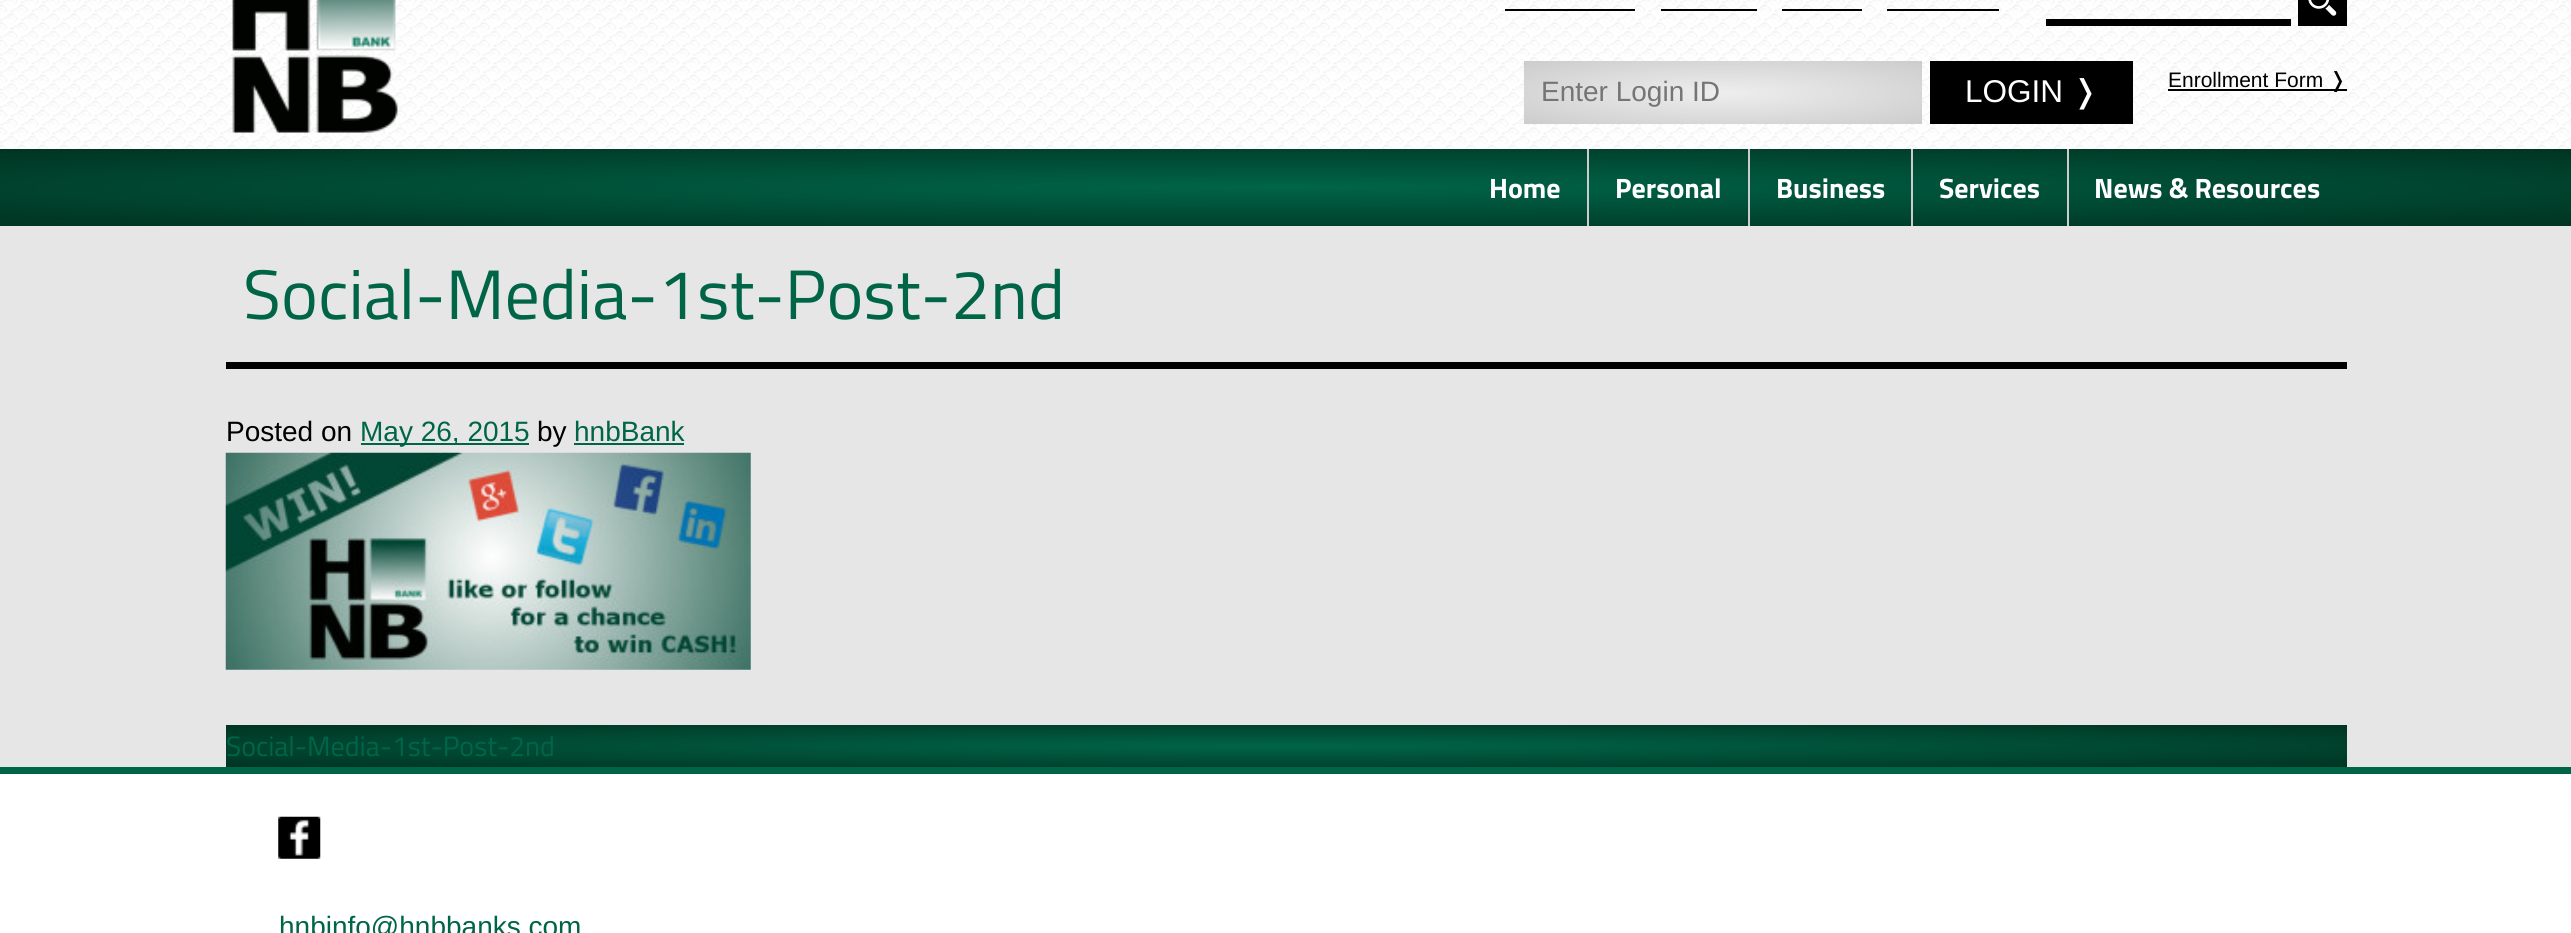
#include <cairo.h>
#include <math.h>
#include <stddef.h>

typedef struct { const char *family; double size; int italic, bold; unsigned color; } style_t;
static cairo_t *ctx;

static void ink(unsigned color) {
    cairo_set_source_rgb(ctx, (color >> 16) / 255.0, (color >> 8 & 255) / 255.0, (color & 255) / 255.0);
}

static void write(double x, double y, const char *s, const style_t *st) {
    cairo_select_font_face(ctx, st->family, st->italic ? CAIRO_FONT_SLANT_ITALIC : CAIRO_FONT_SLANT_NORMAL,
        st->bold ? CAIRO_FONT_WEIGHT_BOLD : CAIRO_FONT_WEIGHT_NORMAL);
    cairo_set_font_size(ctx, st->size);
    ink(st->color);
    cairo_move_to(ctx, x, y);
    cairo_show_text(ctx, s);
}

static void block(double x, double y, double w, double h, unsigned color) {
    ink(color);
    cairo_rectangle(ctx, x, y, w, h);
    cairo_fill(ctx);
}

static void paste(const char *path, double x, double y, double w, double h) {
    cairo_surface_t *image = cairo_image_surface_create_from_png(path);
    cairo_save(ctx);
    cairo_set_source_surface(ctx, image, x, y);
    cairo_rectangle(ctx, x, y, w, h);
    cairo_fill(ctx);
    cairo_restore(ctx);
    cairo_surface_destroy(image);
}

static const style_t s1 = {"Liberation Sans", 28, 0, 0, 0x757575};
static const style_t s2 = {"Liberation Sans", 31.5, 0, 0, 0xffffff};
static const style_t s3 = {"DejaVu Sans", 31.5, 0, 0, 0xffffff};
static const style_t s4 = {"Liberation Sans", 21, 0, 0, 0x000000};
static const style_t s5 = {"DejaVu Sans", 21, 0, 0, 0x000000};
static const style_t s6 = {"Titillium Web", 28, 0, 1, 0xffffff};
static const style_t s7 = {"Titillium Web", 70, 0, 0, 0x006547};
static const style_t s8 = {"Liberation Sans", 28, 0, 0, 0x000000};
static const style_t s9 = {"Liberation Sans", 28, 0, 0, 0x006547};
static const style_t s10 = {"Titillium Web", 28, 0, 0, 0x006547};

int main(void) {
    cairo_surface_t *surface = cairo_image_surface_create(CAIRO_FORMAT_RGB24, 2571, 933);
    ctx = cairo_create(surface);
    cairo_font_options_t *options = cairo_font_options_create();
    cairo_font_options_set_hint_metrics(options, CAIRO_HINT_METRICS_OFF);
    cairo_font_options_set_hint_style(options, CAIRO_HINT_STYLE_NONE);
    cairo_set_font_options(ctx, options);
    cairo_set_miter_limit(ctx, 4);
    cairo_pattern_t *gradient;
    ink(0xe6e6e6);
    cairo_paint(ctx);
    block(0, 0, 2571, 149, 0xffffff);
    paste("pic1.png", 0, 0, 2571, 149);
    paste("pic2.png", 232, 0, 166, 133);
    block(1505, 9, 130, 2, 0x000000);
    block(1661, 9, 96, 2, 0x000000);
    block(1782, 9, 80, 2, 0x000000);
    block(1887, 9, 112, 2, 0x000000);
    block(2046, 19, 245, 7, 0x000000);
    block(2298, 0, 49, 26, 0x000000);
    paste("pic3.png", 2308, 0, 29, 16);
    gradient = cairo_pattern_create_radial(0, 0, 0, 0, 0, 1);
    cairo_pattern_set_matrix(gradient, &(cairo_matrix_t){1.0 / 281, 0, 0, 1.0 / 45, -1.0 * 1723 / 281, -1.0 * 93 / 45});
    cairo_pattern_add_color_stop_rgba(gradient, 0, 0.933, 0.933, 0.933, 1);
    cairo_pattern_add_color_stop_rgba(gradient, 1, 0.8, 0.8, 0.8, 1);
    cairo_set_source(ctx, gradient);
    cairo_pattern_destroy(gradient);
    cairo_rectangle(ctx, 1524, 61, 398, 63);
    cairo_fill(ctx);
    write(1541, 101, "Enter Login ID", &s1);
    block(1930, 61, 203, 63, 0x000000);
    write(1965, 102, "LOGIN", &s2);
    write(2072, 102, "❭", &s3);
    write(2168, 87, "Enrollment Form", &s4);
    block(2168, 89, 179, 2, 0x000000);
    write(2329, 87, "❭", &s5);
    gradient = cairo_pattern_create_radial(0, 0, 0, 0, 0, 1);
    cairo_pattern_set_matrix(gradient, &(cairo_matrix_t){1.0 / 1819, 0, 0, 1.0 / 54, -1.0 * 1286 / 1819, -1.0 * 187 / 54});
    cairo_pattern_add_color_stop_rgba(gradient, 0, 0, 0.396, 0.278, 1);
    cairo_pattern_add_color_stop_rgba(gradient, 1, 0, 0.2, 0.133, 1);
    cairo_set_source(ctx, gradient);
    cairo_pattern_destroy(gradient);
    cairo_rectangle(ctx, 0, 149, 2571, 77);
    cairo_fill(ctx);
    block(1587, 149, 2, 77, 0xcccccc);
    write(1489, 198, "Home", &s6);
    block(1748, 149, 2, 77, 0xcccccc);
    write(1615, 198, "Personal", &s6);
    block(1911, 149, 2, 77, 0xcccccc);
    write(1776, 198, "Business", &s6);
    block(2067, 149, 2, 77, 0xcccccc);
    write(1939, 198, "Services", &s6);
    write(2094, 198, "News & Resources", &s6);
    block(226, 362, 2121, 7, 0x000000);
    write(243, 319, "Social-Media-1st-Post-2nd", &s7);
    write(226, 441, "Posted on", &s8);
    block(361, 443, 168, 2, 0x006547);
    write(360, 441, "May 26, 2015", &s9);
    write(537, 441, "by", &s8);
    write(574, 441, "hnbBank", &s9);
    block(574, 443, 110, 2, 0x006547);
    paste("pic4.png", 225, 452, 526, 218);
    gradient = cairo_pattern_create_radial(0, 0, 0, 0, 0, 1);
    cairo_pattern_set_matrix(gradient, &(cairo_matrix_t){1.0 / 1500, 0, 0, 1.0 / 30, -1.0 * 1286 / 1500, -1.0 * 746 / 30});
    cairo_pattern_add_color_stop_rgba(gradient, 0, 0, 0.396, 0.278, 1);
    cairo_pattern_add_color_stop_rgba(gradient, 1, 0, 0.2, 0.133, 1);
    cairo_set_source(ctx, gradient);
    cairo_pattern_destroy(gradient);
    cairo_rectangle(ctx, 226, 725, 2121, 42);
    cairo_fill(ctx);
    write(226, 756, "Social-Media-1st-Post-2nd", &s10);
    block(0, 774, 2571, 159, 0xffffff);
    block(0, 767, 2571, 7, 0x006547);
    paste("pic5.png", 278, 816, 43, 43);
    write(279, 936, "hnbinfo@hnbbanks.com", &s9);
    cairo_surface_write_to_png(surface, "screenshot.png");
    cairo_font_options_destroy(options);
    cairo_destroy(ctx);
    cairo_surface_destroy(surface);
    return 0;
}
